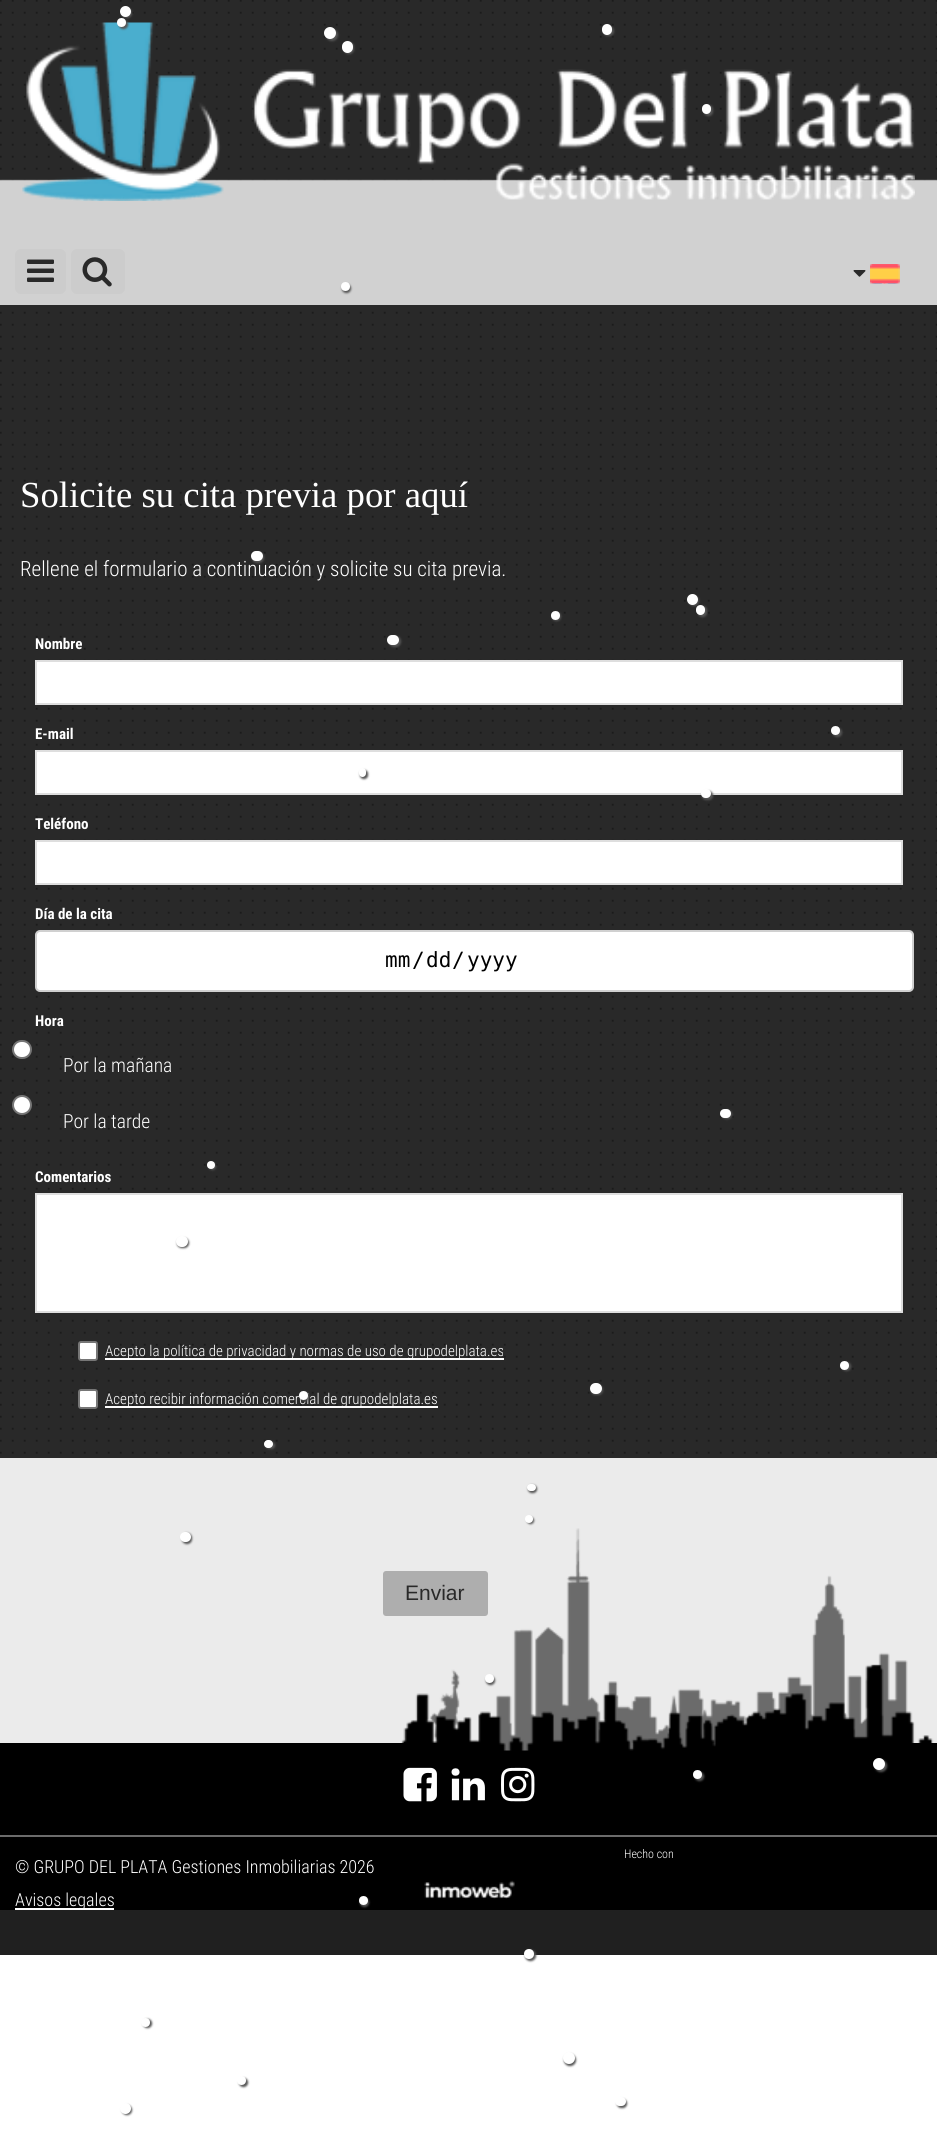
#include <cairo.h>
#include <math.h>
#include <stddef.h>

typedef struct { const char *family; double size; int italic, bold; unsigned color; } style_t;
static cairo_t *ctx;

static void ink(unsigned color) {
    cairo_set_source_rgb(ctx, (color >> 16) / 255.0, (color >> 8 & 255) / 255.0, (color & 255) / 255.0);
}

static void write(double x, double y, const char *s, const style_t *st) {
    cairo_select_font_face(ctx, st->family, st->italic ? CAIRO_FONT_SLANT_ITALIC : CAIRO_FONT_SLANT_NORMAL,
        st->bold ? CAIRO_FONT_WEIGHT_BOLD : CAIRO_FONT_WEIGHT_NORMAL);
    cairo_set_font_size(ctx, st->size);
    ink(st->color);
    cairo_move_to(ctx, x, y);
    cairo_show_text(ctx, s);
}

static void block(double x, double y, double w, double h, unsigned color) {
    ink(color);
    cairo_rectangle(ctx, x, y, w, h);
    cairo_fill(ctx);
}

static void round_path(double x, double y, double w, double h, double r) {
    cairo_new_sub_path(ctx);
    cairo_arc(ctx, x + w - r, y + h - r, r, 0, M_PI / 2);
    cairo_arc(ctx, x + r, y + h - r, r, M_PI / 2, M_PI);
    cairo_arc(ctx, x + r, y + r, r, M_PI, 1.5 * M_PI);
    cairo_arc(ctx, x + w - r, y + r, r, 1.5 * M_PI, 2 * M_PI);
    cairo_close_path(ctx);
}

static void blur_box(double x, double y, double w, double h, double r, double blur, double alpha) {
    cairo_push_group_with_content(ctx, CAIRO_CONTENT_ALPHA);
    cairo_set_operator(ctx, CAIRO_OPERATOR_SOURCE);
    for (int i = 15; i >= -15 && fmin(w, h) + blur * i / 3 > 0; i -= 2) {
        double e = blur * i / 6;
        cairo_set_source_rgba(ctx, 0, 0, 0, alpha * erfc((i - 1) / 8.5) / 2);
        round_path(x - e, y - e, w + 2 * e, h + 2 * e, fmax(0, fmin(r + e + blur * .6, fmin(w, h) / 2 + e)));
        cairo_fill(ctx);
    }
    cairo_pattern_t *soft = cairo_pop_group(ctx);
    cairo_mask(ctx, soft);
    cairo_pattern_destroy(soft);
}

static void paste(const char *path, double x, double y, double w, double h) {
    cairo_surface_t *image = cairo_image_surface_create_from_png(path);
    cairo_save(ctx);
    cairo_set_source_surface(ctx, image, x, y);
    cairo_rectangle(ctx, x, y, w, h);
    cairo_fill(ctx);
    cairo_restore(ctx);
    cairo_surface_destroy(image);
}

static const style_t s1 = {"Liberation Serif", 36.75, 0, 0, 0xffffff};
static const style_t s2 = {"Roboto Condensed Light", 21, 0, 0, 0xffffff};
static const style_t s3 = {"Roboto Condensed", 15, 0, 1, 0xffffff};
static const style_t s4 = {"DejaVu Sans Mono", 21, 0, 0, 0x000000};
static const style_t s5 = {"Roboto Condensed Light", 19.5, 0, 0, 0xffffff};
static const style_t s6 = {"Roboto Condensed Light", 15, 0, 0, 0xffffff};
static const style_t s7 = {"Liberation Sans", 21, 0, 0, 0x292929};
static const style_t s8 = {"Roboto Condensed Light", 12, 0, 0, 0xffffff};
static const style_t s9 = {"Roboto Condensed Light", 18, 0, 0, 0xffffff};

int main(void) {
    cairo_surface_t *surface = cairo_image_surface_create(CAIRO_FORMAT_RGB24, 937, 2140);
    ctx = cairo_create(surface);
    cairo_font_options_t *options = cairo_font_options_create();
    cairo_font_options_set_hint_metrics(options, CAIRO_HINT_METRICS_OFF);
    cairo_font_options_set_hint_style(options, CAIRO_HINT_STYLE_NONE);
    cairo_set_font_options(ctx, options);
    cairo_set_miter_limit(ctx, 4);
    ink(0xffffff);
    cairo_paint(ctx);
    paste("pic1.png", 0, 0, 937, 1458);
    ink(0x555555);
    blur_box(122, 8, 10, 10, 5, 1, 1);
    ink(0xffffff);
    cairo_arc(ctx, 125.5, 11.5, 5.5, 0, 2 * M_PI);
    cairo_fill(ctx);
    paste("pic2.png", 0, 179, 937, 63);
    paste("pic3.png", 22, 22, 893, 179);
    ink(0x555555);
    blur_box(119, 20, 9, 9, 4.5, 1, 1);
    ink(0xffffff);
    cairo_arc(ctx, 121.5, 22.5, 4.5, 0, 2 * M_PI);
    cairo_fill(ctx);
    ink(0x555555);
    blur_box(326, 29, 12, 12, 6, 1, 1);
    ink(0xffffff);
    cairo_arc(ctx, 330, 33, 6, 0, 2 * M_PI);
    cairo_fill(ctx);
    ink(0x555555);
    blur_box(603, 26, 11, 10, 5, 1, 1);
    ink(0xffffff);
    round_path(602, 24, 10, 11, 5);
    cairo_fill(ctx);
    ink(0x555555);
    blur_box(344, 42, 10, 12, 5, 1, 1);
    ink(0xffffff);
    round_path(342, 41, 11, 12, 5.5);
    cairo_fill(ctx);
    ink(0x555555);
    blur_box(704, 105, 9, 11, 4.5, 1, 1);
    ink(0xffffff);
    round_path(702, 104, 9, 10, 4.5);
    cairo_fill(ctx);
    block(0, 242, 937, 63, 0xd1d1d1);
    ink(0x555555);
    blur_box(342, 284, 9, 9, 4.5, 1, 1);
    ink(0xffffff);
    cairo_arc(ctx, 345.5, 286.5, 4.5, 0, 2 * M_PI);
    cairo_fill(ctx);
    ink(0xcccccc);
    round_path(15, 249, 51, 45, 6);
    cairo_fill(ctx);
    paste("pic4.png", 27, 259, 27, 23);
    round_path(71, 249, 54, 45, 6);
    cairo_fill(ctx);
    paste("pic5.png", 82, 257, 30, 30);
    paste("pic6.png", 853, 270, 13, 7);
    paste("pic7.png", 870, 264, 30, 20);
    write(20, 507, "Solicite su cita previa por aquí", &s1);
    write(20, 576, "Rellene el formulario a continuación y solicite su cita previa.", &s2);
    write(35, 649, "Nombre", &s3);
    cairo_rectangle(ctx, 36, 661, 866, 43);
    cairo_fill_preserve(ctx);
    ink(0xdedede);
    cairo_stroke(ctx);
    write(35, 739, "E-mail", &s3);
    cairo_rectangle(ctx, 36, 751, 866, 43);
    cairo_fill_preserve(ctx);
    ink(0xdedede);
    cairo_stroke(ctx);
    write(35, 829, "Teléfono", &s3);
    cairo_rectangle(ctx, 36, 841, 866, 43);
    cairo_fill_preserve(ctx);
    ink(0xdedede);
    cairo_stroke(ctx);
    write(35, 919, "Día de la cita", &s3);
    round_path(36, 931, 877, 60, 4);
    cairo_fill_preserve(ctx);
    ink(0xd0d0d0);
    cairo_stroke(ctx);
    write(385, 967, "mm", &s4);
    write(412, 967, "/", &s4);
    write(426, 967, "dd", &s4);
    write(452, 967, "/", &s4);
    write(467, 967, "yyyy", &s4);
    write(35, 1026, "Hora", &s3);
    round_path(13, 1041, 18, 17, 8.5);
    cairo_fill_preserve(ctx);
    ink(0x767676);
    cairo_stroke(ctx);
    write(63, 1072, "Por la mañana", &s5);
    cairo_new_path(ctx);
    cairo_arc(ctx, 22, 1105, 9, 0, 2 * M_PI);
    cairo_fill_preserve(ctx);
    ink(0x767676);
    cairo_stroke(ctx);
    write(63, 1128, "Por la tarde", &s5);
    write(35, 1182, "Comentarios", &s3);
    cairo_rectangle(ctx, 36, 1194, 866, 118);
    cairo_fill_preserve(ctx);
    ink(0xdedede);
    cairo_stroke(ctx);
    ink(0xffffff);
    round_path(79, 1342, 18, 18, 2);
    cairo_fill_preserve(ctx);
    ink(0x767676);
    cairo_stroke(ctx);
    block(105, 1358, 399, 2, 0xfdfdfd);
    write(105, 1356, "Acepto la política de privacidad y normas de uso de grupodelplata.es", &s6);
    round_path(79, 1390, 18, 18, 2);
    cairo_fill_preserve(ctx);
    ink(0x767676);
    cairo_stroke(ctx);
    block(105, 1406, 333, 2, 0xfdfdfd);
    write(105, 1404, "Acepto recibir información comercial de grupodelplata.es", &s6);
    block(0, 1458, 937, 285, 0xebebeb);
    ink(0xaeaeae);
    round_path(383, 1571, 105, 45, 3);
    cairo_fill(ctx);
    write(405, 1600, "Enviar", &s7);
    block(0, 1910, 937, 45, 0x202020);
    block(0, 1743, 937, 92, 0x000000);
    paste("pic8.png", 401, 1528, 533, 223);
    paste("pic9.png", 403, 1767, 34, 35);
    paste("pic10.png", 451, 1768, 34, 33);
    paste("pic11.png", 501, 1767, 34, 35);
    block(0, 1837, 937, 73, 0x000000);
    block(0, 1835, 937, 2, 0x6b6b6b);
    write(624, 1858, "Hecho con", &s8);
    paste("pic12.png", 424, 1880, 91, 19);
    write(15, 1873, "© GRUPO DEL PLATA Gestiones Inmobiliarias 2026", &s9);
    block(15, 1908, 99, 2, 0xffffff);
    write(15, 1906, "Avisos legales", &s9);
    ink(0x555555);
    blur_box(252, 552, 12, 11, 5.5, 1, 1);
    ink(0xffffff);
    round_path(251, 551, 12, 10, 5);
    cairo_fill(ctx);
    ink(0x555555);
    blur_box(689, 596, 10, 10, 5, 1, 1);
    ink(0xffffff);
    cairo_arc(ctx, 692.5, 599.5, 5.5, 0, 2 * M_PI);
    cairo_fill(ctx);
    ink(0x555555);
    blur_box(552, 612, 9, 9, 4.5, 1, 1);
    ink(0xffffff);
    cairo_arc(ctx, 555.5, 615.5, 4.5, 0, 2 * M_PI);
    cairo_fill(ctx);
    ink(0x555555);
    blur_box(698, 606, 9, 11, 4.5, 1, 1);
    ink(0xffffff);
    round_path(696, 605, 9, 10, 4.5);
    cairo_fill(ctx);
    ink(0x555555);
    blur_box(389, 636, 12, 11, 5.5, 1, 1);
    ink(0xffffff);
    round_path(387, 635, 12, 10, 5);
    cairo_fill(ctx);
    ink(0x555555);
    blur_box(833, 728, 9, 9, 4.5, 1, 1);
    ink(0xffffff);
    cairo_arc(ctx, 835.5, 730.5, 4.5, 0, 2 * M_PI);
    cairo_fill(ctx);
    ink(0x555555);
    blur_box(360, 770, 8, 9, 4, 1, 1);
    ink(0xffffff);
    round_path(359, 768, 7, 9, 3.5);
    cairo_fill(ctx);
    ink(0x555555);
    blur_box(702, 791, 11, 9, 4.5, 1, 1);
    ink(0xffffff);
    round_path(701, 789, 10, 9, 4.5);
    cairo_fill(ctx);
    ink(0x555555);
    blur_box(722, 1110, 10, 9, 4.5, 1, 1);
    ink(0xffffff);
    round_path(720, 1109, 11, 9, 4.5);
    cairo_fill(ctx);
    ink(0x555555);
    blur_box(209, 1163, 7, 7, 3.5, 1, 1);
    ink(0xffffff);
    cairo_arc(ctx, 211, 1165, 4, 0, 2 * M_PI);
    cairo_fill(ctx);
    ink(0x555555);
    blur_box(177, 1238, 12, 10, 5, 1, 1);
    ink(0xffffff);
    round_path(176, 1236, 12, 11, 5.5);
    cairo_fill(ctx);
    ink(0x555555);
    blur_box(842, 1362, 9, 9, 4.5, 1, 1);
    ink(0xffffff);
    cairo_arc(ctx, 844.5, 1365.5, 4.5, 0, 2 * M_PI);
    cairo_fill(ctx);
    ink(0x555555);
    blur_box(300, 1392, 9, 9, 4.5, 1, 1);
    ink(0xffffff);
    cairo_arc(ctx, 303.5, 1395.5, 4.5, 0, 2 * M_PI);
    cairo_fill(ctx);
    ink(0x555555);
    blur_box(591, 1385, 12, 10, 5, 1, 1);
    ink(0xffffff);
    round_path(590, 1383, 12, 11, 5.5);
    cairo_fill(ctx);
    ink(0x555555);
    blur_box(266, 1442, 9, 7, 3.5, 1, 1);
    ink(0xffffff);
    round_path(264, 1440, 9, 8, 4);
    cairo_fill(ctx);
    ink(0x555555);
    blur_box(528, 1485, 9, 8, 4, 1, 1);
    ink(0xffffff);
    round_path(527, 1484, 9, 7, 3.5);
    cairo_fill(ctx);
    ink(0x555555);
    blur_box(527, 1517, 7, 7, 3.5, 1, 1);
    ink(0xffffff);
    cairo_arc(ctx, 529, 1519, 4, 0, 2 * M_PI);
    cairo_fill(ctx);
    ink(0x555555);
    blur_box(182, 1533, 10, 11, 5, 1, 1);
    ink(0xffffff);
    round_path(180, 1532, 11, 10, 5);
    cairo_fill(ctx);
    ink(0x555555);
    blur_box(486, 1676, 9, 9, 4.5, 1, 1);
    ink(0xffffff);
    cairo_arc(ctx, 489.5, 1678.5, 4.5, 0, 2 * M_PI);
    cairo_fill(ctx);
    ink(0x555555);
    blur_box(695, 1772, 9, 9, 4.5, 1, 1);
    ink(0xffffff);
    cairo_arc(ctx, 697.5, 1774.5, 4.5, 0, 2 * M_PI);
    cairo_fill(ctx);
    ink(0x555555);
    blur_box(875, 1760, 12, 12, 6, 1, 1);
    ink(0xffffff);
    cairo_arc(ctx, 879, 1764, 6, 0, 2 * M_PI);
    cairo_fill(ctx);
    ink(0x555555);
    blur_box(360, 1898, 9, 9, 4.5, 1, 1);
    ink(0xffffff);
    cairo_arc(ctx, 363.5, 1900.5, 4.5, 0, 2 * M_PI);
    cairo_fill(ctx);
    ink(0x555555);
    blur_box(525, 1950, 11, 11, 5.5, 1, 1);
    ink(0xffffff);
    cairo_arc(ctx, 529, 1954, 5, 0, 2 * M_PI);
    cairo_fill(ctx);
    ink(0x555555);
    blur_box(143, 2019, 9, 9, 4.5, 1, 1);
    ink(0xffffff);
    cairo_arc(ctx, 145.5, 2022.5, 4.5, 0, 2 * M_PI);
    cairo_fill(ctx);
    ink(0x555555);
    blur_box(564, 2054, 12, 12, 6, 1, 1);
    ink(0xffffff);
    cairo_arc(ctx, 569, 2058, 6, 0, 2 * M_PI);
    cairo_fill(ctx);
    ink(0x555555);
    blur_box(239, 2078, 9, 9, 4.5, 1, 1);
    ink(0xffffff);
    cairo_arc(ctx, 241.5, 2080.5, 4.5, 0, 2 * M_PI);
    cairo_fill(ctx);
    ink(0x555555);
    blur_box(122, 2105, 10, 10, 5, 1, 1);
    ink(0xffffff);
    cairo_arc(ctx, 125.5, 2108.5, 5.5, 0, 2 * M_PI);
    cairo_fill(ctx);
    ink(0x555555);
    blur_box(617, 2099, 10, 9, 4.5, 1, 1);
    ink(0xffffff);
    round_path(615, 2097, 11, 9, 4.5);
    cairo_fill(ctx);
    cairo_surface_write_to_png(surface, "screenshot.png");
    cairo_font_options_destroy(options);
    cairo_destroy(ctx);
    cairo_surface_destroy(surface);
    return 0;
}
